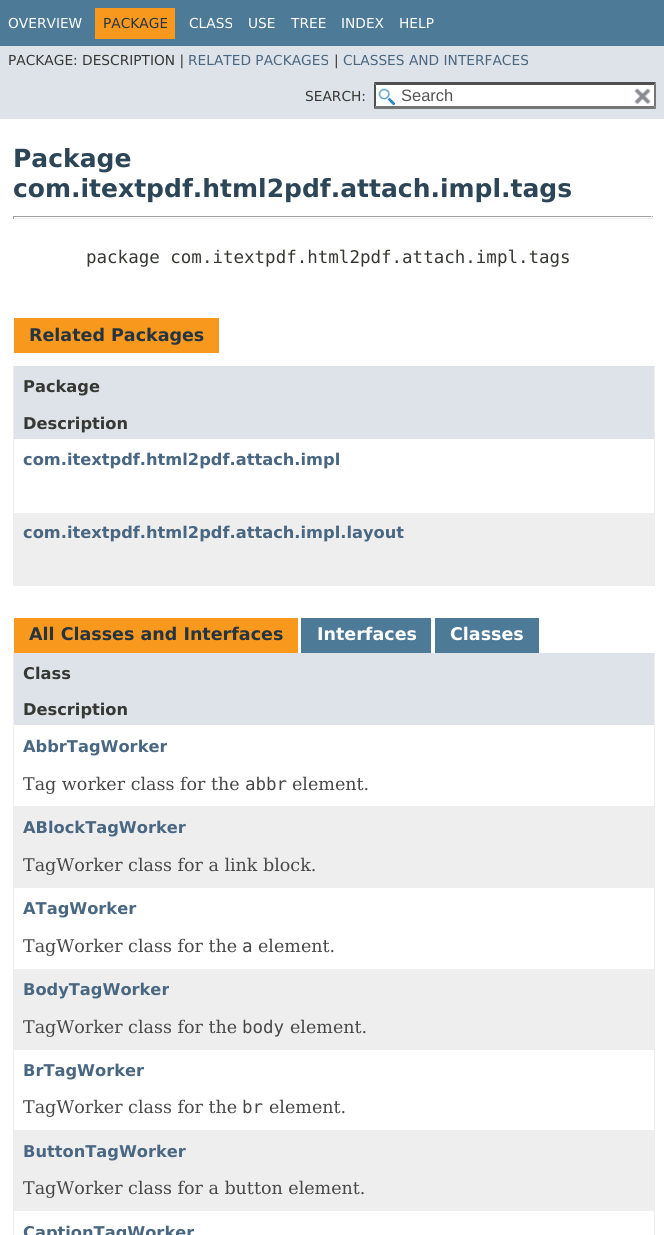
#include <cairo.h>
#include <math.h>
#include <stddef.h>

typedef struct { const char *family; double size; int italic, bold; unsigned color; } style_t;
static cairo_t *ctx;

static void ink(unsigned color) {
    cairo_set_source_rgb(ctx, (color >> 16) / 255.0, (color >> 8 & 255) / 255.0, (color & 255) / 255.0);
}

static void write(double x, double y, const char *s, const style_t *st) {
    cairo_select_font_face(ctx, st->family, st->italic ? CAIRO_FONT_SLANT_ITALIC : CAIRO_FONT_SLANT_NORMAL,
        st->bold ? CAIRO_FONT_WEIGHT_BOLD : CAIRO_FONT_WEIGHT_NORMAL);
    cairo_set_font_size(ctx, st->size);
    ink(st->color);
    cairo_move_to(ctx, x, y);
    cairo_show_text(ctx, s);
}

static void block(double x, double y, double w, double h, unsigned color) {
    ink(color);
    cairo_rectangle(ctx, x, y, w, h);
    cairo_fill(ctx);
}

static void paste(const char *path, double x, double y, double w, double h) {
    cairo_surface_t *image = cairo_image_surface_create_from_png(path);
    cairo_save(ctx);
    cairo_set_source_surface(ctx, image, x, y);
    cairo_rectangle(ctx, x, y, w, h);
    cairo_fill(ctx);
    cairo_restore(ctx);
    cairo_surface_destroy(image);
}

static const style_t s1 = {"DejaVu Sans", 13.75, 0, 0, 0xffffff};
static const style_t s2 = {"DejaVu Sans", 13.75, 0, 0, 0x253441};
static const style_t s3 = {"DejaVu Sans", 13.75, 0, 0, 0x353833};
static const style_t s4 = {"DejaVu Sans", 13.75, 0, 0, 0x4a6782};
static const style_t s5 = {"Liberation Sans", 16.5, 0, 0, 0x545454};
static const style_t s6 = {"DejaVu Sans", 25, 0, 1, 0x2c4557};
static const style_t s7 = {"DejaVu Sans Mono", 17.5, 0, 0, 0x353833};
static const style_t s8 = {"DejaVu Sans", 17.5, 0, 1, 0x253441};
static const style_t s9 = {"DejaVu Sans", 16.25, 0, 1, 0x353833};
static const style_t s10 = {"DejaVu Sans", 16.25, 0, 1, 0x4a6782};
static const style_t s11 = {"DejaVu Sans", 17.5, 0, 1, 0xffffff};
static const style_t s12 = {"DejaVu Serif", 17.5, 0, 0, 0x474747};
static const style_t s13 = {"DejaVu Sans Mono", 17.5, 0, 0, 0x474747};

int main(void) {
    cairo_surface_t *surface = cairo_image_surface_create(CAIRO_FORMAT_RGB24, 664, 1235);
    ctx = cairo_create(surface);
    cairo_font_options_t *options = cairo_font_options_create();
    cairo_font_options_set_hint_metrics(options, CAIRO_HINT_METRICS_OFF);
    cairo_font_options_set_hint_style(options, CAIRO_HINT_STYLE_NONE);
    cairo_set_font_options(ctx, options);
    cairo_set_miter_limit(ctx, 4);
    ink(0xffffff);
    cairo_paint(ctx);
    block(0, 0, 664, 46, 0x4d7a97);
    write(8, 28, "OVERVIEW", &s1);
    block(95, 8, 80, 31, 0xf8981d);
    write(103, 28, "PACKAGE", &s2);
    write(189, 28, "CLASS", &s1);
    write(248, 28, "USE", &s1);
    write(291, 28, "TREE", &s1);
    write(341, 28, "INDEX", &s1);
    write(399, 28, "HELP", &s1);
    block(0, 46, 664, 73, 0xdee3e9);
    write(8, 65, "PACKAGE: DESCRIPTION |", &s3);
    write(188, 65, "RELATED PACKAGES", &s4);
    write(334, 65, "|", &s3);
    write(343, 65, "CLASSES AND INTERFACES", &s4);
    write(305, 101, "SEARCH:", &s3);
    block(374, 83, 282, 26, 0xffffff);
    paste("pic1.png", 378, 88, 17, 17);
    ink(0x4f4f4f);
    cairo_new_path(ctx);
    cairo_move_to(ctx, 374, 82);
    cairo_line_to(ctx, 656, 82);
    cairo_line_to(ctx, 654, 85);
    cairo_line_to(ctx, 376, 85);
    cairo_close_path(ctx);
    cairo_fill(ctx);
    ink(0x767676);
    cairo_new_path(ctx);
    cairo_move_to(ctx, 656, 82.5);
    cairo_line_to(ctx, 656, 109);
    cairo_line_to(ctx, 654, 106);
    cairo_line_to(ctx, 654, 85);
    cairo_close_path(ctx);
    cairo_fill(ctx);
    cairo_new_path(ctx);
    cairo_move_to(ctx, 656, 109);
    cairo_line_to(ctx, 374, 109);
    cairo_line_to(ctx, 376, 106);
    cairo_line_to(ctx, 654, 106);
    cairo_close_path(ctx);
    cairo_fill(ctx);
    ink(0x4f4f4f);
    cairo_new_path(ctx);
    cairo_move_to(ctx, 374, 109);
    cairo_line_to(ctx, 374, 82.5);
    cairo_line_to(ctx, 376, 85);
    cairo_line_to(ctx, 376, 106);
    cairo_close_path(ctx);
    cairo_fill(ctx);
    write(401, 101, "Search", &s5);
    paste("pic2.png", 634, 88, 17, 16);
    write(13, 167, "Package", &s6);
    write(13, 197, "com.itextpdf.html2pdf.attach.impl.tags", &s6);
    block(13, 216, 640, 1, 0x9f9f9f);
    block(651, 216, 1, 3, 0xeeeeee);
    block(13, 218, 640, 1, 0xeeeeee);
    block(13, 216, 1, 3, 0x9f9f9f);
    write(86, 263, "package com.itextpdf.html2pdf.attach.impl.tags", &s7);
    block(14, 318, 205, 35, 0xf8981d);
    write(29, 341, "Related Packages", &s8);
    block(654, 366, 1, 220, 0xeeeeee);
    block(13, 585, 642, 1, 0xeeeeee);
    block(13, 366, 1, 220, 0xeeeeee);
    block(14, 366, 640, 73, 0xdee3e9);
    write(23, 392, "Package", &s9);
    write(23, 429, "Description", &s9);
    write(23, 465, "com.itextpdf.html2pdf.attach.impl", &s10);
    block(14, 513, 640, 72, 0xeeeeef);
    write(23, 538, "com.itextpdf.html2pdf.attach.impl.layout", &s10);
    block(14, 618, 284, 35, 0xf8981d);
    write(29, 640, "All Classes and Interfaces", &s8);
    block(301, 618, 130, 35, 0x4d7a97);
    write(317, 640, "Interfaces", &s11);
    block(435, 618, 104, 35, 0x4d7a97);
    write(450, 640, "Classes", &s11);
    block(654, 653, 1, 582, 0xeeeeee);
    block(13, 653, 1, 582, 0xeeeeee);
    block(14, 653, 640, 72, 0xdee3e9);
    write(23, 679, "Class", &s9);
    write(23, 715, "Description", &s9);
    write(23, 752, "AbbrTagWorker", &s10);
    write(23, 790, "Tag worker class for the", &s12);
    write(245, 790, "abbr", &s13);
    write(292, 790, "element.", &s12);
    block(14, 806, 640, 82, 0xeeeeef);
    write(23, 833, "ABlockTagWorker", &s10);
    write(23, 871, "TagWorker class for a link block.", &s12);
    write(23, 914, "ATagWorker", &s10);
    write(23, 952, "TagWorker class for the", &s12);
    write(242, 952, "a", &s13);
    write(258, 952, "element.", &s12);
    block(14, 969, 640, 81, 0xeeeeef);
    write(23, 995, "BodyTagWorker", &s10);
    write(23, 1033, "TagWorker class for the", &s12);
    write(242, 1033, "body", &s13);
    write(290, 1033, "element.", &s12);
    write(23, 1076, "BrTagWorker", &s10);
    write(23, 1113, "TagWorker class for the", &s12);
    write(242, 1113, "br", &s13);
    write(269, 1113, "element.", &s12);
    block(14, 1130, 640, 81, 0xeeeeef);
    write(23, 1157, "ButtonTagWorker", &s10);
    write(23, 1194, "TagWorker class for a button element.", &s12);
    write(23, 1238, "CaptionTagWorker", &s10);
    cairo_surface_write_to_png(surface, "screenshot.png");
    cairo_font_options_destroy(options);
    cairo_destroy(ctx);
    cairo_surface_destroy(surface);
    return 0;
}
